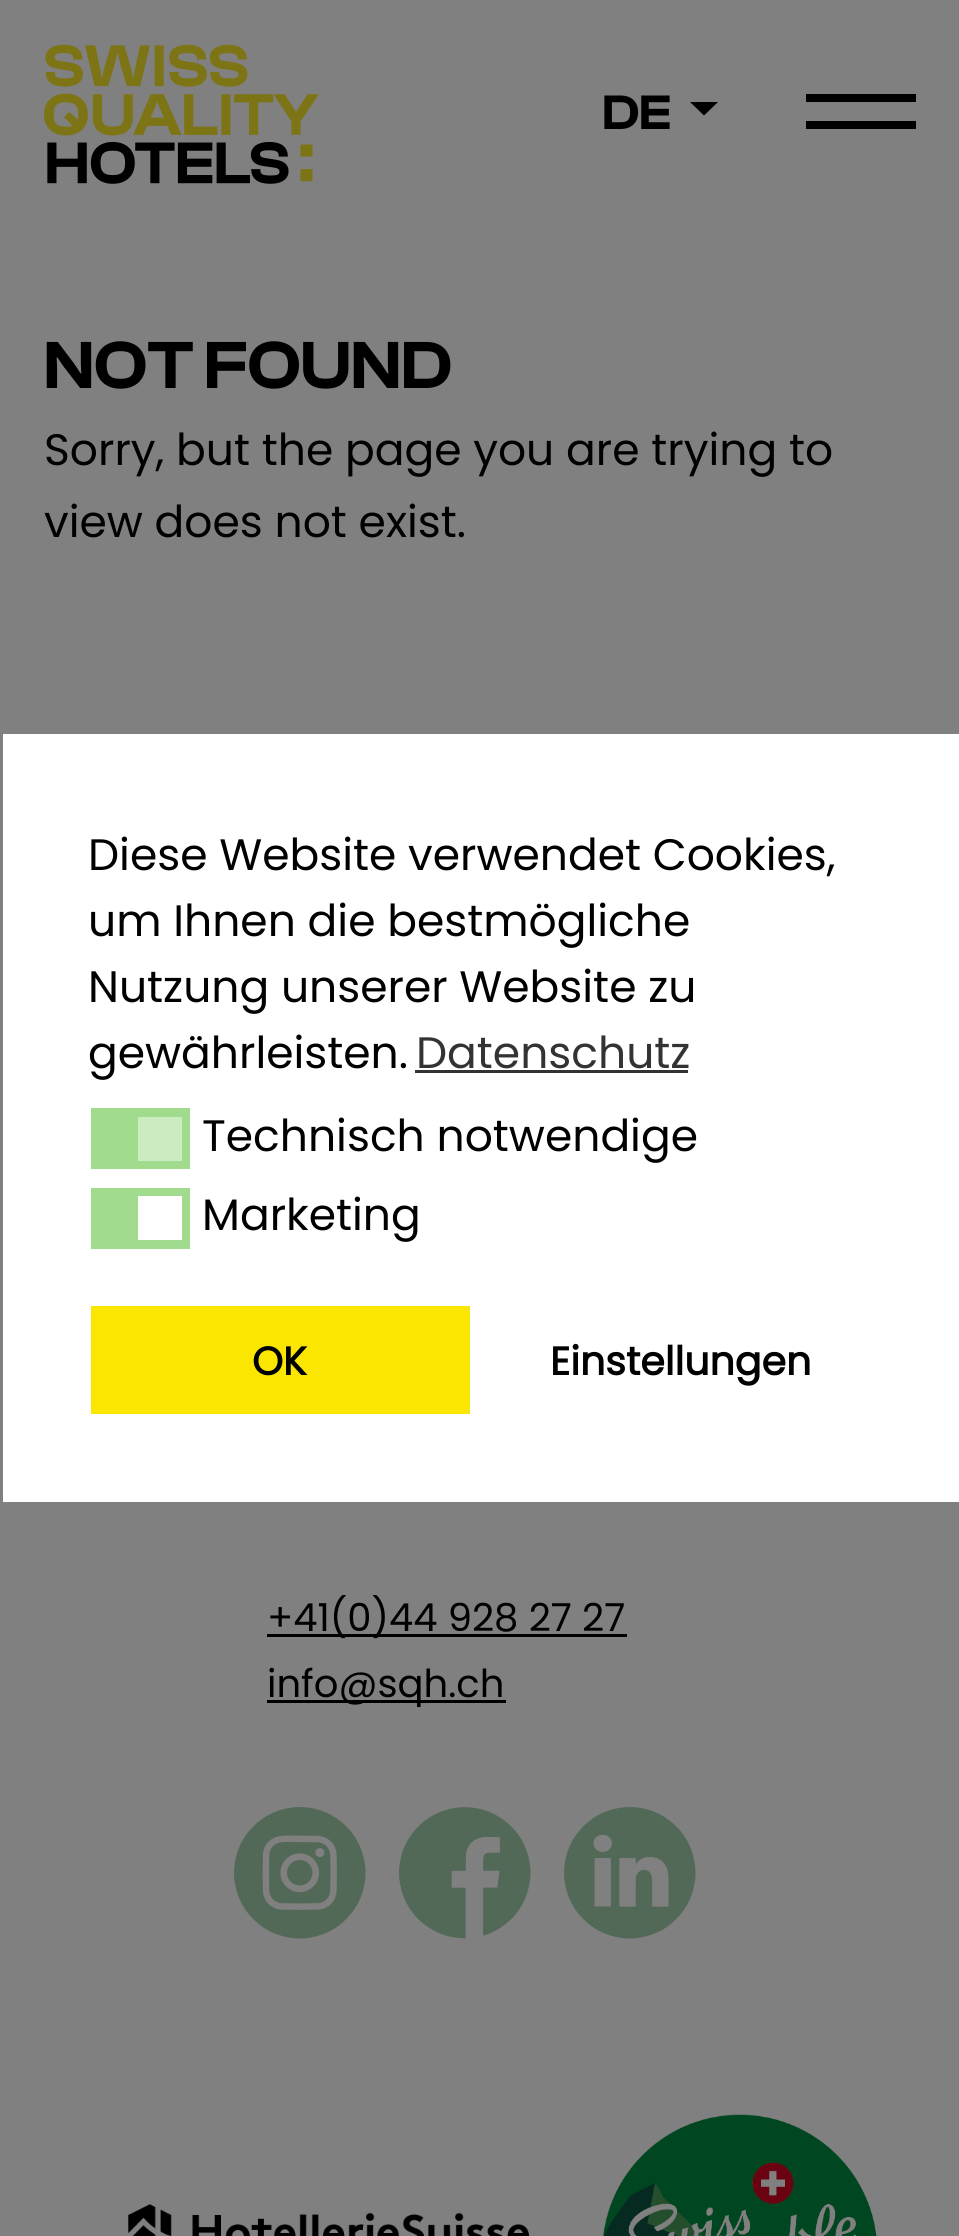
#include <cairo.h>
#include <math.h>
#include <stddef.h>

typedef struct { const char *family; double size; int italic, bold; unsigned color; } style_t;
static cairo_t *ctx;

static void ink(unsigned color) {
    cairo_set_source_rgb(ctx, (color >> 16) / 255.0, (color >> 8 & 255) / 255.0, (color & 255) / 255.0);
}

static void write(double x, double y, const char *s, const style_t *st) {
    cairo_select_font_face(ctx, st->family, st->italic ? CAIRO_FONT_SLANT_ITALIC : CAIRO_FONT_SLANT_NORMAL,
        st->bold ? CAIRO_FONT_WEIGHT_BOLD : CAIRO_FONT_WEIGHT_NORMAL);
    cairo_set_font_size(ctx, st->size);
    ink(st->color);
    cairo_move_to(ctx, x, y);
    cairo_show_text(ctx, s);
}

static void block(double x, double y, double w, double h, unsigned color) {
    ink(color);
    cairo_rectangle(ctx, x, y, w, h);
    cairo_fill(ctx);
}

static void paste(const char *path, double x, double y, double w, double h) {
    cairo_surface_t *image = cairo_image_surface_create_from_png(path);
    cairo_save(ctx);
    cairo_set_source_surface(ctx, image, x, y);
    cairo_rectangle(ctx, x, y, w, h);
    cairo_fill(ctx);
    cairo_restore(ctx);
    cairo_surface_destroy(image);
}

static const style_t s1 = {"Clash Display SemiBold", 50, 0, 0, 0x000000};
static const style_t s2 = {"Clash Display SemiBold", 68.75, 0, 0, 0x000000};
static const style_t s3 = {"Poppins", 44, 0, 0, 0x000000};
static const style_t s4 = {"Poppins", 38.5, 0, 0, 0x000000};
static const style_t s5 = {"Poppins", 44, 0, 0, 0x333333};
static const style_t s6 = {"Poppins", 39.5, 0, 1, 0x000000};

int main(void) {
    cairo_surface_t *surface = cairo_image_surface_create(CAIRO_FORMAT_RGB24, 959, 2236);
    ctx = cairo_create(surface);
    cairo_font_options_t *options = cairo_font_options_create();
    cairo_font_options_set_hint_metrics(options, CAIRO_HINT_METRICS_OFF);
    cairo_font_options_set_hint_style(options, CAIRO_HINT_STYLE_NONE);
    cairo_set_font_options(ctx, options);
    cairo_set_miter_limit(ctx, 4);
    ink(0x808080);
    cairo_paint(ctx);
    paste("pic1.png", 44, 44, 275, 140);
    write(602, 129, "DE", &s1);
    cairo_new_path(ctx);
    cairo_move_to(ctx, 690, 102);
    cairo_line_to(ctx, 718, 102);
    cairo_line_to(ctx, 704, 115.5);
    cairo_close_path(ctx);
    cairo_fill(ctx);
    block(806, 94, 110, 8, 0x000000);
    block(806, 121, 110, 8, 0x000000);
    write(44, 388, "NOT FOUND", &s2);
    write(44, 465, "Sorry, but the page you are trying to", &s3);
    write(44, 537, "view does not exist.", &s3);
    block(267, 1634, 360, 3, 0x000000);
    write(267, 1631, "+41(0)44 928 27 27", &s4);
    block(267, 1700, 239, 3, 0x000000);
    write(267, 1697, "info@sqh.ch", &s4);
    paste("pic2.png", 234, 1807, 132, 132);
    paste("pic3.png", 399, 1807, 132, 132);
    paste("pic4.png", 564, 1807, 132, 132);
    paste("pic5.png", 128, 2204, 401, 32);
    paste("pic6.png", 603, 2114, 274, 122);
    block(3, 734, 956, 768, 0xffffff);
    write(88, 870, "Diese Website verwendet Cookies,", &s3);
    write(88, 936, "um Ihnen die bestmögliche", &s3);
    write(88, 1002, "Nutzung unserer Website zu", &s3);
    write(88, 1068, "gewährleisten.", &s3);
    write(416, 1068, "Datenschutz", &s5);
    block(415, 1070, 273, 3, 0x333333);
    block(91, 1108, 99, 61, 0xa0db8e);
    block(138, 1117, 44, 44, 0xcbebc1);
    write(202, 1151, "Technisch notwendige", &s3);
    block(91, 1188, 99, 61, 0xa0db8e);
    block(138, 1196, 44, 44, 0xffffff);
    write(202, 1230, "Marketing", &s3);
    block(91, 1306, 379, 108, 0xfae600);
    write(252, 1375, "OK", &s6);
    write(550, 1375, "Einstellungen", &s6);
    cairo_surface_write_to_png(surface, "screenshot.png");
    cairo_font_options_destroy(options);
    cairo_destroy(ctx);
    cairo_surface_destroy(surface);
    return 0;
}
